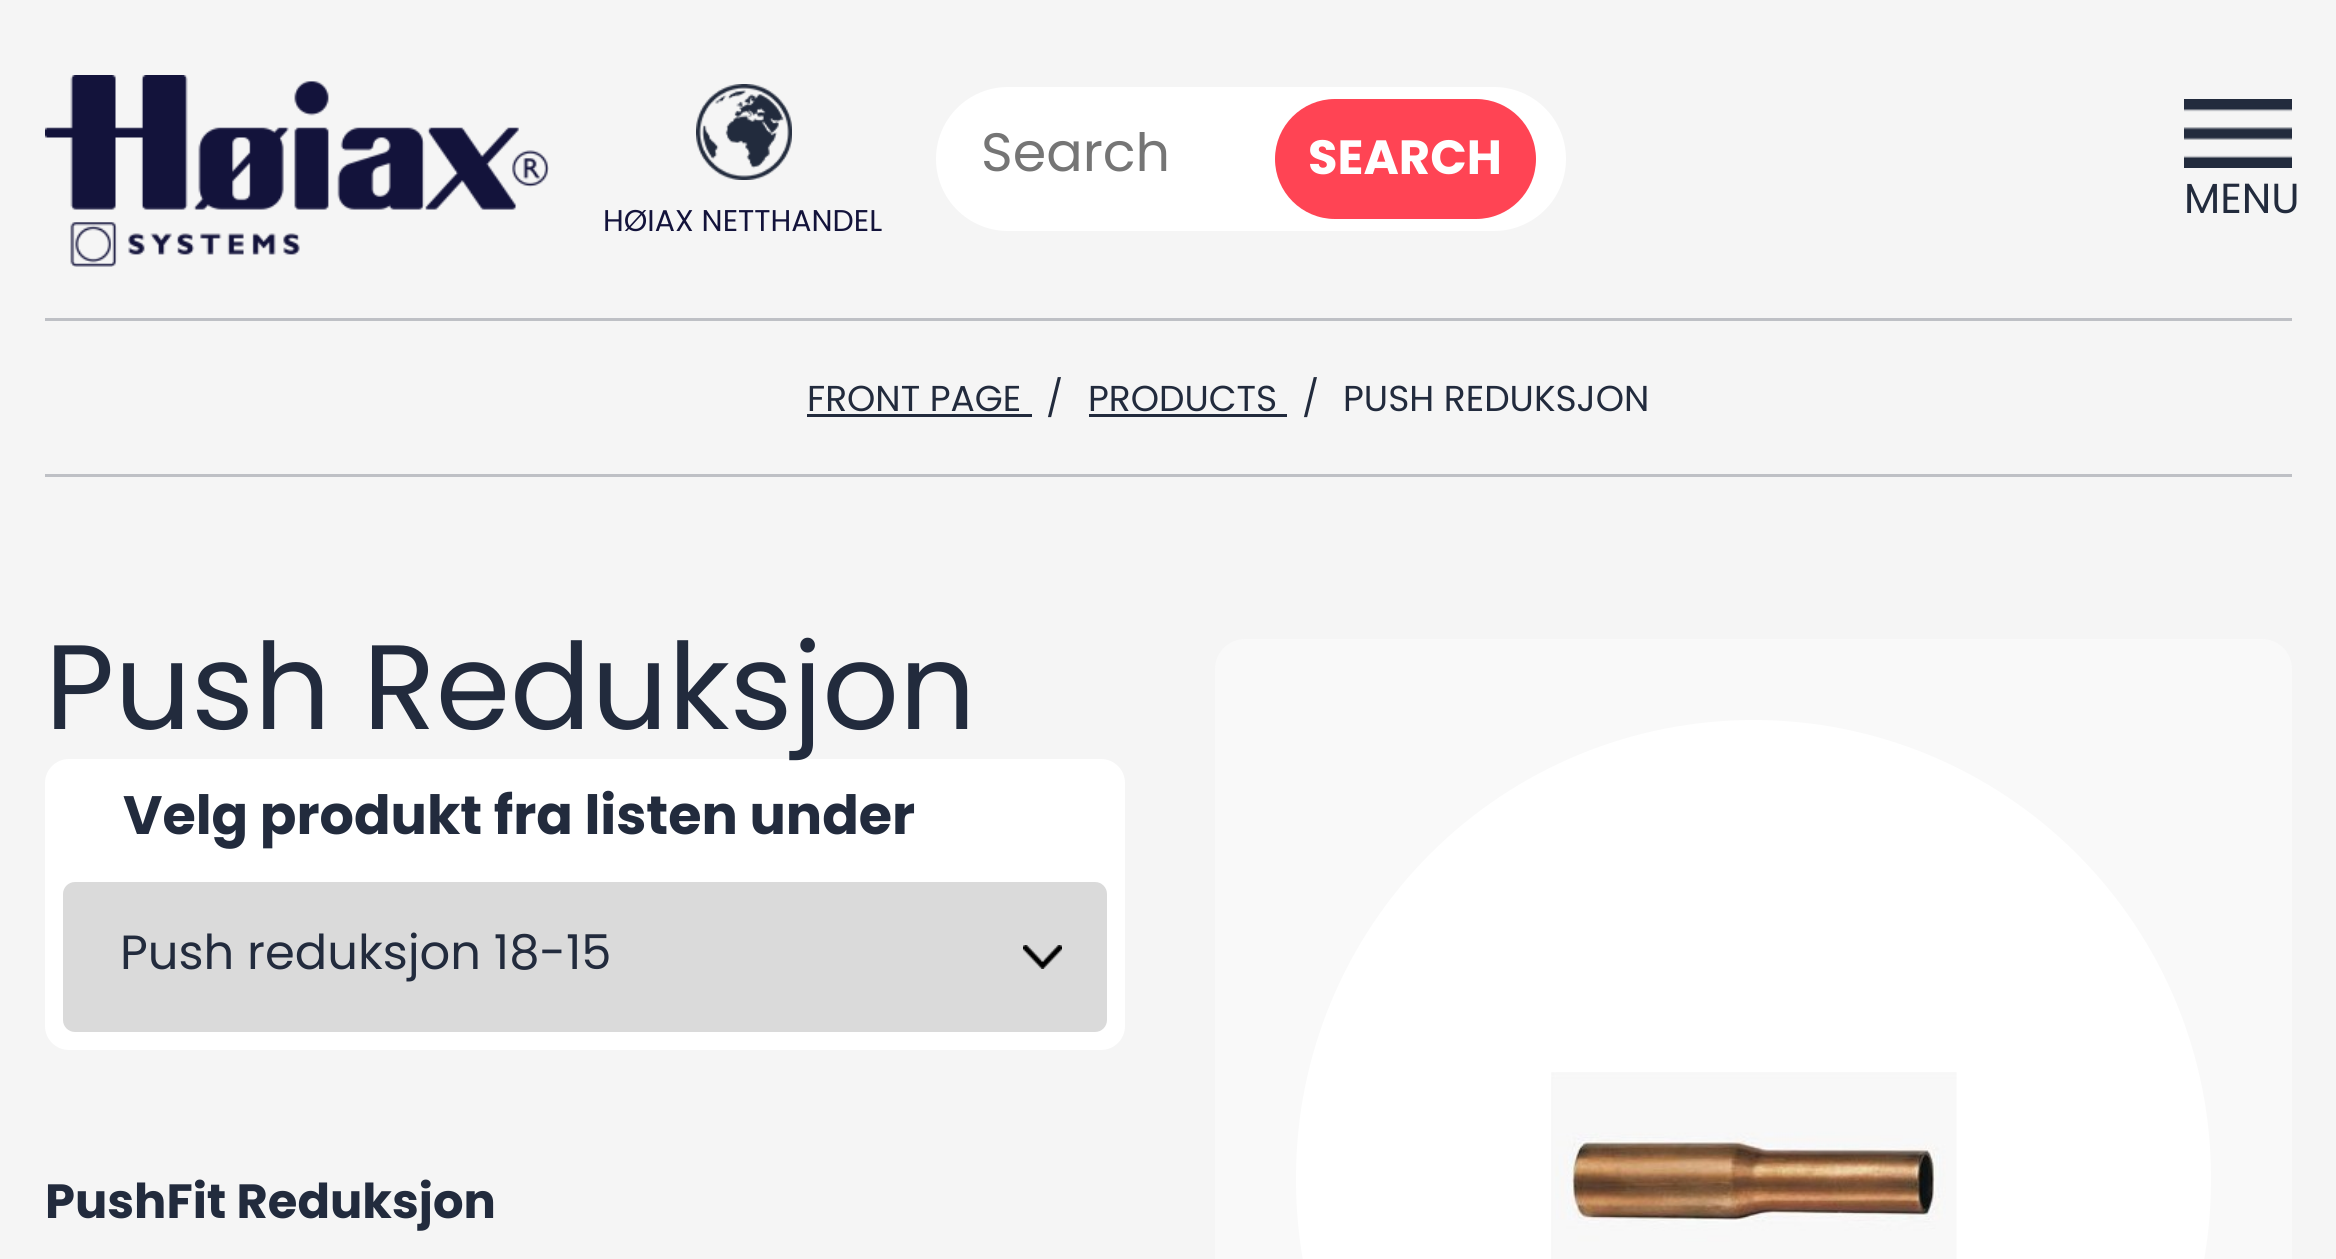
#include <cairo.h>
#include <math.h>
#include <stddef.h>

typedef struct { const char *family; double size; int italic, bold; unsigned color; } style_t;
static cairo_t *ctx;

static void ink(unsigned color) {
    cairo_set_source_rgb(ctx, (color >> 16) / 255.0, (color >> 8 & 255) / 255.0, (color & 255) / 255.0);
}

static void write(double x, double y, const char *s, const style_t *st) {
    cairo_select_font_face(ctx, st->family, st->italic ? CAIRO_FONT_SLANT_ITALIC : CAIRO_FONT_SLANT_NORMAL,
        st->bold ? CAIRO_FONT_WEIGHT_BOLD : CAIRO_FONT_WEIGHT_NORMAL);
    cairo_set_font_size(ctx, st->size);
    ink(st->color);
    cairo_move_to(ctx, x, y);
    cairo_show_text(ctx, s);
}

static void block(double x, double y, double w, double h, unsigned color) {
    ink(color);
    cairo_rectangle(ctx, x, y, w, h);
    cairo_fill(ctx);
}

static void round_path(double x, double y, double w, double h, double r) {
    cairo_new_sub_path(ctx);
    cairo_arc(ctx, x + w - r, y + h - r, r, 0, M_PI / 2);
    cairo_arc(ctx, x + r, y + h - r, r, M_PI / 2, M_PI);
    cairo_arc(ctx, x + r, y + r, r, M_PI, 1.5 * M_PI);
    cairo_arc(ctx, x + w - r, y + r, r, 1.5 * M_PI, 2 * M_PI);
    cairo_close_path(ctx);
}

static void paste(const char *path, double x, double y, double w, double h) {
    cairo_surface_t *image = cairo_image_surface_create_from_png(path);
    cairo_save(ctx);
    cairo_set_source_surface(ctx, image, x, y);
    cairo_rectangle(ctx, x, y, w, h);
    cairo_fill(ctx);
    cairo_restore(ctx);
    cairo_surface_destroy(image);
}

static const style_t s1 = {"Poppins", 54, 0, 0, 0x757575};
static const style_t s2 = {"Poppins", 48, 0, 1, 0xffffff};
static const style_t s3 = {"Poppins", 42, 0, 0, 0x222b3d};
static const style_t s4 = {"Poppins", 30, 0, 0, 0x13133b};
static const style_t s5 = {"Poppins", 36, 0, 0, 0x222b3d};
static const style_t s6 = {"Poppins", 120, 0, 0, 0x222b3d};
static const style_t s7 = {"Poppins", 54, 0, 1, 0x222b3d};
static const style_t s8 = {"Poppins", 48, 0, 0, 0x222b3d};
static const style_t s9 = {"Poppins", 48, 0, 1, 0x222b3d};

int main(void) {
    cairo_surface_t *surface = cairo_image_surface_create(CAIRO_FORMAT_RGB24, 2336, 1259);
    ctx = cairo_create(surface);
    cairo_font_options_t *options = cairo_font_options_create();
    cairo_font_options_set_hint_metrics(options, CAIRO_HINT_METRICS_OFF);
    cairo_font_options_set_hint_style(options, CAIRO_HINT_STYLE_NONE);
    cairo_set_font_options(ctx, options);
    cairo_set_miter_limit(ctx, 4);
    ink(0xf5f5f5);
    cairo_paint(ctx);
    paste("pic1.png", 45, 75, 504, 192);
    ink(0xffffff);
    round_path(936, 87, 630, 144, 72);
    cairo_fill(ctx);
    cairo_save(ctx);
    cairo_rectangle(ctx, 981, 132, 540, 54);
    cairo_clip(ctx);
    write(981, 171, "Search", &s1);
    cairo_restore(ctx);
    ink(0xff4454);
    round_path(1275, 99, 261, 120, 60);
    cairo_fill(ctx);
    write(1308, 174, "SEARCH", &s2);
    paste("pic2.png", 2184, 99, 108, 69);
    write(2184, 213, "MENU", &s3);
    paste("pic3.png", 696, 84, 96, 96);
    write(603, 231, "HØIAX NETTHANDEL", &s4);
    block(45, 318, 2247, 3, 0xbec0c5);
    block(45, 474, 2247, 3, 0xbec0c5);
    write(807, 411, "FRONT PAGE", &s5);
    block(807, 414, 225, 3, 0x222b3d);
    write(1046, 411, "/", &s5);
    write(1088, 411, "PRODUCTS", &s5);
    block(1089, 414, 198, 3, 0x222b3d);
    write(1302, 411, "/", &s5);
    write(1343, 411, "PUSH REDUKSJON", &s5);
    ink(0xffffff);
    round_path(45, 759, 1080, 291, 24);
    cairo_fill(ctx);
    write(45, 729, "Push Reduksjon", &s6);
    write(123, 834, "Velg produkt fra listen under", &s7);
    ink(0xdadada);
    round_path(63, 882, 1044, 150, 12);
    cairo_fill(ctx);
    write(120, 969, "Push reduksjon 18-15", &s8);
    paste("pic4.png", 1023, 945, 39, 24);
    write(45, 1218, "PushFit Reduksjon", &s9);
    ink(0xf9f9f9);
    round_path(1215, 639, 1077, 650, 30);
    cairo_fill(ctx);
    ink(0xffffff);
    round_path(1296, 720, 915, 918, 457.5);
    cairo_fill(ctx);
    paste("pic5.png", 1551, 1072, 406, 187);
    cairo_surface_write_to_png(surface, "screenshot.png");
    cairo_font_options_destroy(options);
    cairo_destroy(ctx);
    cairo_surface_destroy(surface);
    return 0;
}
